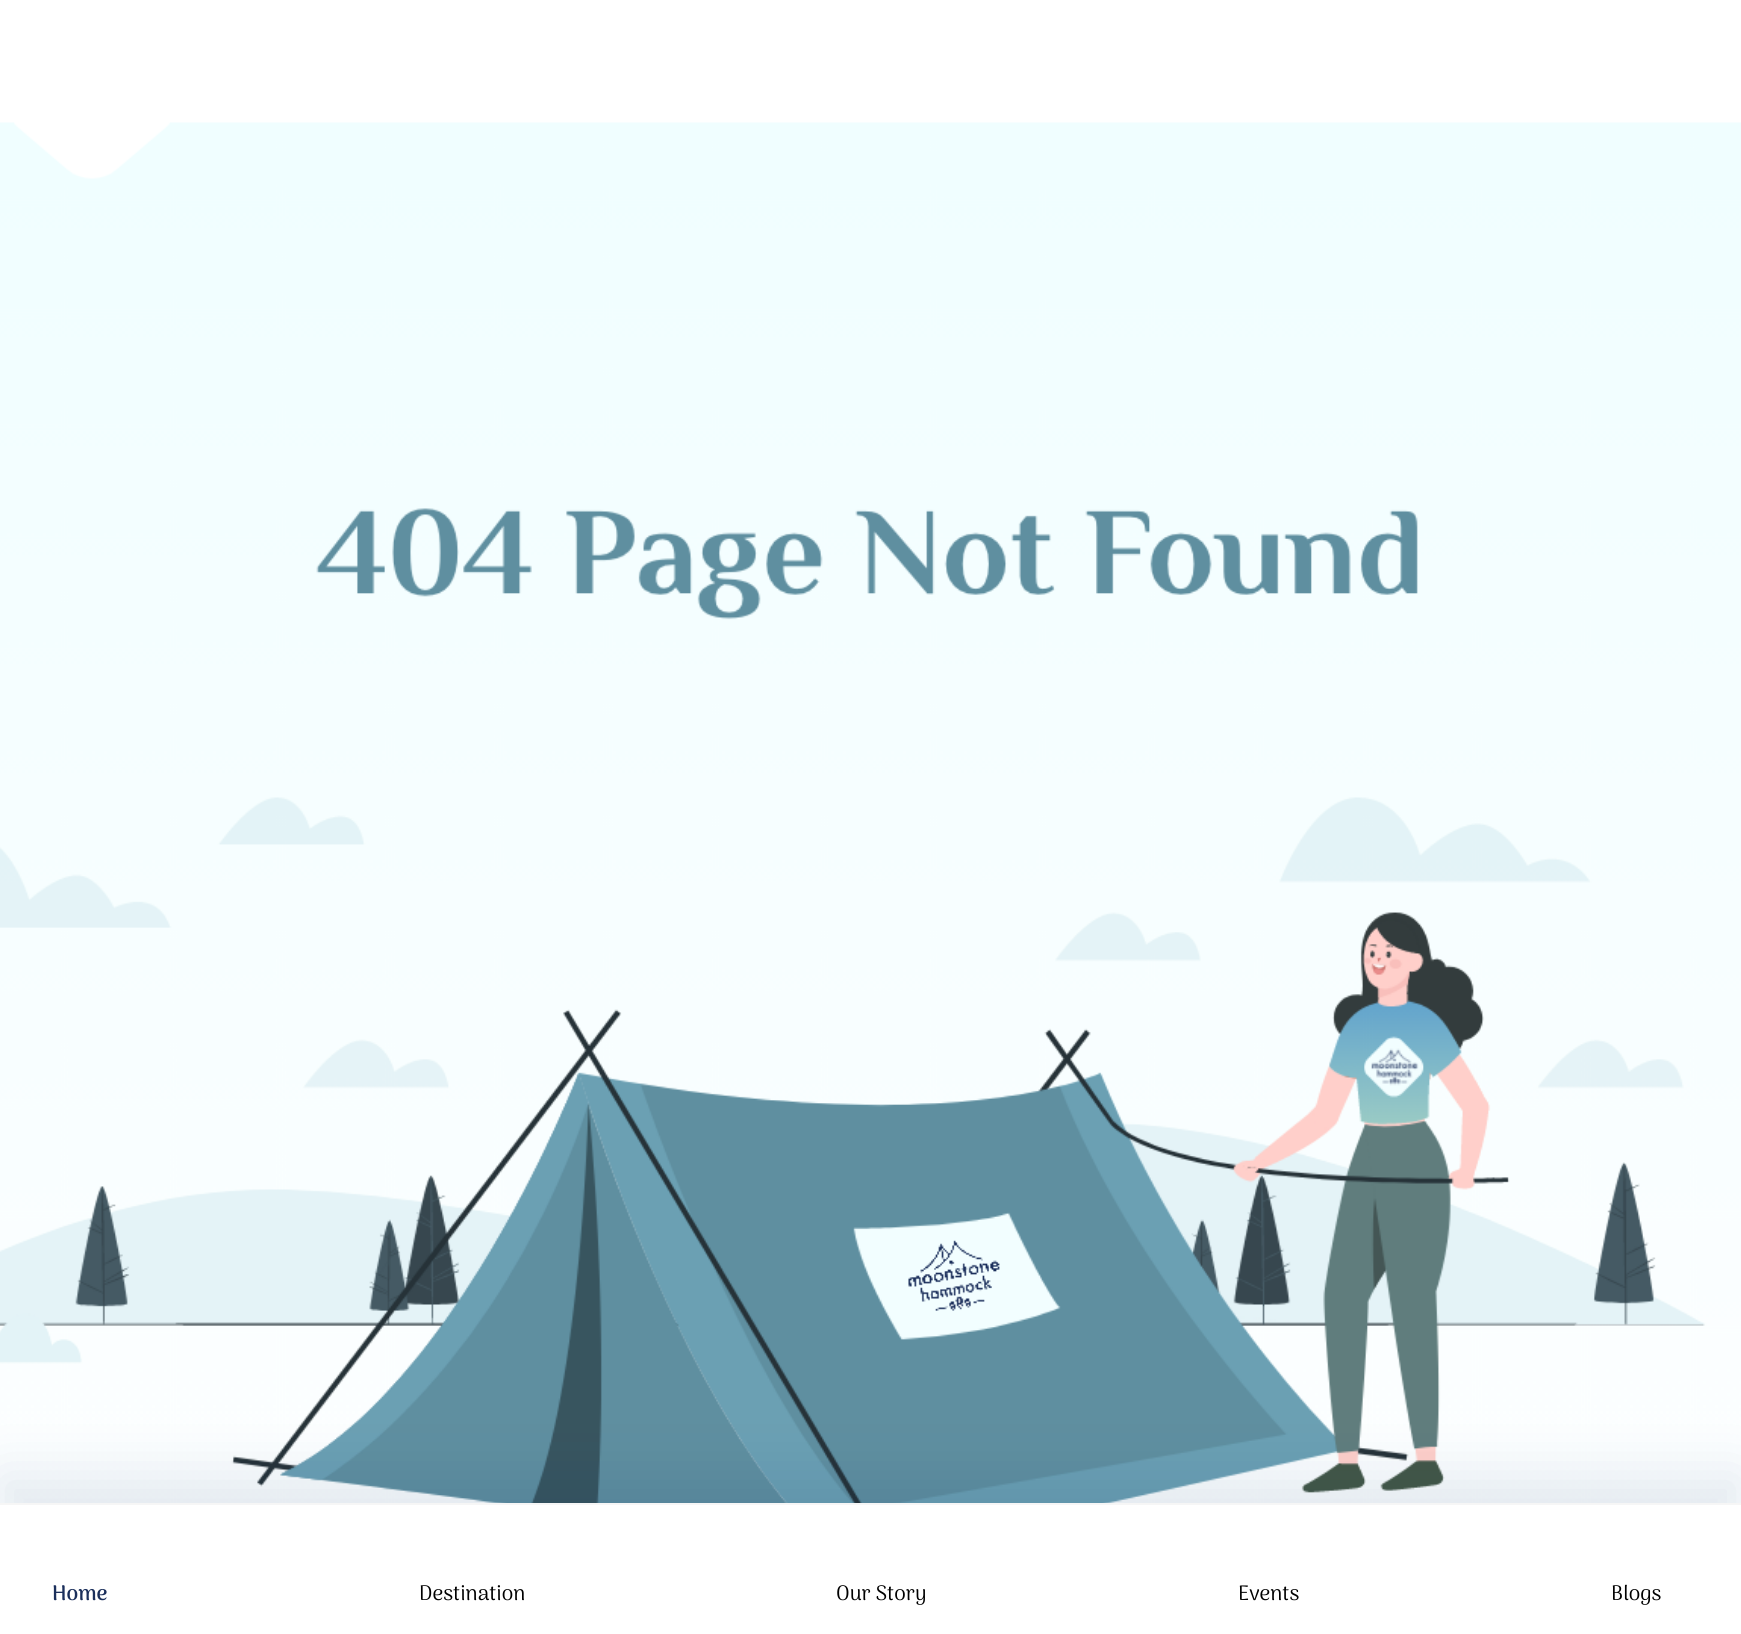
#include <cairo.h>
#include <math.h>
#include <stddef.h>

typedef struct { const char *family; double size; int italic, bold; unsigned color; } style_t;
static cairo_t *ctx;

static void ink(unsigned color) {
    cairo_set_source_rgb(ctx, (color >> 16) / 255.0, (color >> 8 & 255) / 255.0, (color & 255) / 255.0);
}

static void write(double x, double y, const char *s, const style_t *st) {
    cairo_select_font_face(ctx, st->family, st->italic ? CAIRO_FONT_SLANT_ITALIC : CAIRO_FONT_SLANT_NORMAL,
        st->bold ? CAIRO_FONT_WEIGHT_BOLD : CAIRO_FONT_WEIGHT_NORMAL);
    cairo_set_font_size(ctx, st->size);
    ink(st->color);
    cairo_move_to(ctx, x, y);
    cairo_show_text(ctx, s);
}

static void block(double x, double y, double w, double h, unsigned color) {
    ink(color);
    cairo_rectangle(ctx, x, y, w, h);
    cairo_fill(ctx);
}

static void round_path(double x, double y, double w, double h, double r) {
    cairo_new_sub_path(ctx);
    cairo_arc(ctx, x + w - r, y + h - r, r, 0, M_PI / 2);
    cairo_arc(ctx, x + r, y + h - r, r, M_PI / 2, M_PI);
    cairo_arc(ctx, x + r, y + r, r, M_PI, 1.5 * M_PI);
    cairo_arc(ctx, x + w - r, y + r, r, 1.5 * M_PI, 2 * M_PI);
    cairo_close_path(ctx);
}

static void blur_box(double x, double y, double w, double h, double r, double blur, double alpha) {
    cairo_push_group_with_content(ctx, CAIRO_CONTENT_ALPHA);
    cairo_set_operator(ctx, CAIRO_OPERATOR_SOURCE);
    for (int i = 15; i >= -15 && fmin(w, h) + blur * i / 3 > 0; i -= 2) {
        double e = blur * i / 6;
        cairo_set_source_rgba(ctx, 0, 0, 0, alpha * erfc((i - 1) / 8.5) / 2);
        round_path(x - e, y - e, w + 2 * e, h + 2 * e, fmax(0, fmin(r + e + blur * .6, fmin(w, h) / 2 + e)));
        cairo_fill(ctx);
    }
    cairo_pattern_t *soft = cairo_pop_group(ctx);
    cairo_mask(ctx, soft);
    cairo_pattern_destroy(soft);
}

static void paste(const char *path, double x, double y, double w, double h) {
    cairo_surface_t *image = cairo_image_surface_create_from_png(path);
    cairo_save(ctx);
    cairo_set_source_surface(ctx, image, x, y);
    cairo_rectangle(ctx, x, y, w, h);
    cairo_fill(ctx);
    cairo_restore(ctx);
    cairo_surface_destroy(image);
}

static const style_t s1 = {"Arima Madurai", 21, 0, 1, 0x1b2f5b};
static const style_t s2 = {"Arima Madurai", 21, 0, 0, 0x000000};

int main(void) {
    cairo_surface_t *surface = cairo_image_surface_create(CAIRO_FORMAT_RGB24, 1741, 1634);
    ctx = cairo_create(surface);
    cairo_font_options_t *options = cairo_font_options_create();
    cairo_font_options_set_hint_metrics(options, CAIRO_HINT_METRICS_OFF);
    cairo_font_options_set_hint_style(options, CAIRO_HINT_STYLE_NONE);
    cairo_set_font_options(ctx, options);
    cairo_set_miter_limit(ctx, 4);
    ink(0xffffff);
    cairo_paint(ctx);
    paste("pic1.png", 0, 122, 1741, 1381);
    paste("pic2.png", 14, 122, 156, 57);
    ink(0x022964);
    blur_box(0, 1475, 1741, 132, 0, 28, 0.1);
    block(0, 1505, 1741, 129, 0xffffff);
    block(0, 1503, 1741, 2, 0xf6f6f6);
    write(52, 1600, "Home", &s1);
    write(419, 1600, "Destination", &s2);
    write(836, 1600, "Our Story", &s2);
    write(1238, 1600, "Events", &s2);
    write(1611, 1600, "Blogs", &s2);
    cairo_surface_write_to_png(surface, "screenshot.png");
    cairo_font_options_destroy(options);
    cairo_destroy(ctx);
    cairo_surface_destroy(surface);
    return 0;
}
